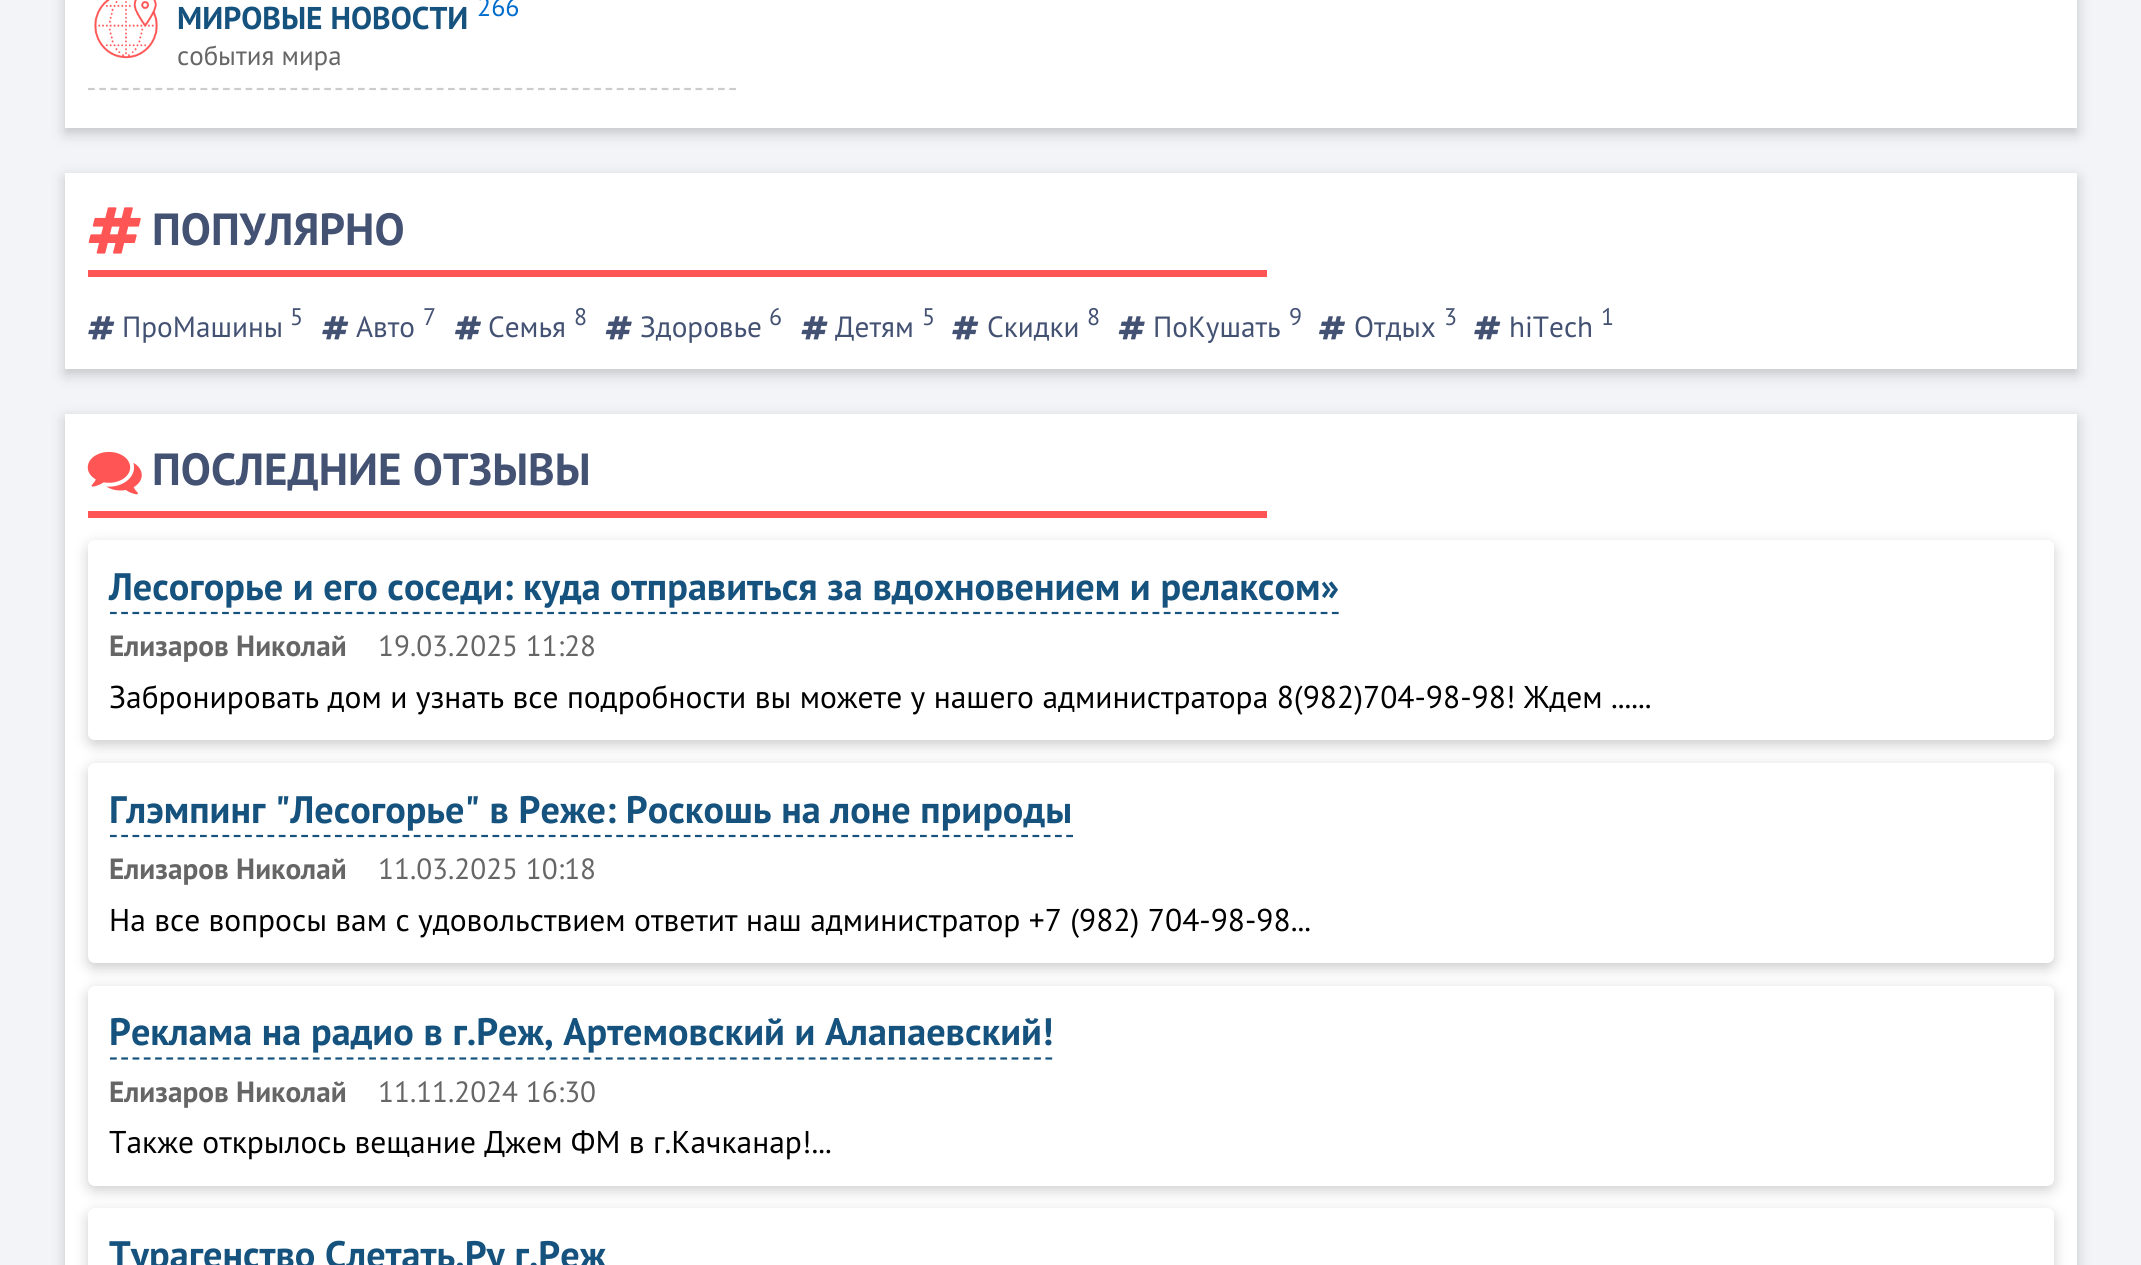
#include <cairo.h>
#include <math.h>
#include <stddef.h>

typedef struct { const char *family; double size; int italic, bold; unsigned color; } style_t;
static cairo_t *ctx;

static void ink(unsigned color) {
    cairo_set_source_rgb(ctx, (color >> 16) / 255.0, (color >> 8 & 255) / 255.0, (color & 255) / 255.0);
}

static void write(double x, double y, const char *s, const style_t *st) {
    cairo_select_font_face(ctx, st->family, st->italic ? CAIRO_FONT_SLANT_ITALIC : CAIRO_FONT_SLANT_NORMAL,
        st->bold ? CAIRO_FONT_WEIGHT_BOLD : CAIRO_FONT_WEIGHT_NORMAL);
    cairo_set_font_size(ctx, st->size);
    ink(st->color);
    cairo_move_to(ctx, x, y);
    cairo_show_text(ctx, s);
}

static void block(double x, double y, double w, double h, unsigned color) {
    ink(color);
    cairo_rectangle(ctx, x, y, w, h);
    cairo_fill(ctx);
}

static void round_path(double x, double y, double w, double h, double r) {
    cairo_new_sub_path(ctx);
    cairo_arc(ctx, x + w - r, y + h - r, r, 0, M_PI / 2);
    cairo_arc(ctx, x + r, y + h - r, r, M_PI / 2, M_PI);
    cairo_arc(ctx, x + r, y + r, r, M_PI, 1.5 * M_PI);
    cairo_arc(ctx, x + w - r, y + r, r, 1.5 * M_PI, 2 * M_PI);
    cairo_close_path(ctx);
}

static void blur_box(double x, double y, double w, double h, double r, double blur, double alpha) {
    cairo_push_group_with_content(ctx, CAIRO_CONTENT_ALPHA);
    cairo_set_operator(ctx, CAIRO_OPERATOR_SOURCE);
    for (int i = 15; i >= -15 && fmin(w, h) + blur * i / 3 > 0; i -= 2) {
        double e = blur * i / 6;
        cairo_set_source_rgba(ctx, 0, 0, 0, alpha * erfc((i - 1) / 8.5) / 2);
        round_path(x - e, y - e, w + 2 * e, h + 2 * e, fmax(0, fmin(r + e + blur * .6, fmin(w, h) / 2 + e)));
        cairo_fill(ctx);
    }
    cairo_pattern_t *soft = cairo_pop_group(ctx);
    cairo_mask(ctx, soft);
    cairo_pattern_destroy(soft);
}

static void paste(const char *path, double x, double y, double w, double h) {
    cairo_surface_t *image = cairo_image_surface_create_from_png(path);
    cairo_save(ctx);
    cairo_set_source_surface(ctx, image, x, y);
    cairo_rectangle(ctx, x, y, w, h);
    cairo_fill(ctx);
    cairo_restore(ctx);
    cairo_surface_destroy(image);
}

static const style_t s1 = {"PT Sans", 31.5, 0, 1, 0x15527e};
static const style_t s2 = {"PT Sans", 26, 0, 0, 0x006dcc};
static const style_t s3 = {"PT Sans", 27, 0, 0, 0x666666};
static const style_t s4 = {"PT Sans", 45, 0, 1, 0x435173};
static const style_t s5 = {"PT Sans", 29.25, 0, 0, 0x435173};
static const style_t s6 = {"PT Sans", 24, 0, 0, 0x435173};
static const style_t s7 = {"PT Sans", 38.25, 0, 1, 0x15527e};
static const style_t s8 = {"PT Sans", 29.25, 0, 1, 0x666666};
static const style_t s9 = {"PT Sans", 29.25, 0, 0, 0x666666};
static const style_t s10 = {"PT Sans", 31.5, 0, 0, 0x000000};

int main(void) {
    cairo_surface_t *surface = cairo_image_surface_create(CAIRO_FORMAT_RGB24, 2141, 1265);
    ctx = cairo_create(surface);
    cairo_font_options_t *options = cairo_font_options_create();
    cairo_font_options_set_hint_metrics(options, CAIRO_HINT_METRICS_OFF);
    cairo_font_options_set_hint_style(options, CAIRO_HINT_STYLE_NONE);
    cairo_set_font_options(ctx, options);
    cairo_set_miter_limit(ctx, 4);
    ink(0xf2f4f7);
    cairo_paint(ctx);
    ink(0x000000);
    blur_box(65, -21, 2012, 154, 0, 7, 0.2);
    block(65, 0, 2012, 128, 0xffffff);
    cairo_new_path(ctx);
    cairo_move_to(ctx, 88, 89);
    cairo_line_to(ctx, 736, 89);
    ink(0xcccccc);
    cairo_set_line_width(ctx, 2.2);
    cairo_set_dash(ctx, (double[]){6.75, 4.5}, 2, 0);
    cairo_stroke(ctx);
    paste("pic1.png", 94, 0, 64, 59);
    write(177, 29, "МИРОВЫЕ НОВОСТИ", &s1);
    write(477, 16, "266", &s2);
    write(177, 65, "события мира", &s3);
    ink(0x000000);
    blur_box(65, 178, 2012, 196, 0, 7, 0.2);
    block(65, 173, 2012, 196, 0xffffff);
    paste("pic2.png", 88, 207, 53, 47);
    write(152, 245, "ПОПУЛЯРНО", &s4);
    block(88, 270, 1179, 7, 0xff5555);
    paste("pic3.png", 88, 316, 27, 24);
    write(122, 337, "ПроМашины", &s5);
    write(290, 325, "5", &s6);
    paste("pic3.png", 322, 316, 27, 24);
    write(356, 337, "Авто", &s5);
    write(423, 325, "7", &s6);
    paste("pic4.png", 455, 316, 26, 24);
    write(488, 337, "Семья", &s5);
    write(574, 325, "8", &s6);
    paste("pic5.png", 605, 316, 27, 24);
    write(640, 337, "Здоровье", &s5);
    write(769, 325, "6", &s6);
    paste("pic6.png", 801, 316, 27, 24);
    write(835, 337, "Детям", &s5);
    write(922, 325, "5", &s6);
    paste("pic3.png", 952, 316, 27, 24);
    write(987, 337, "Скидки", &s5);
    write(1087, 325, "8", &s6);
    paste("pic5.png", 1118, 316, 27, 24);
    write(1153, 337, "ПоКушать", &s5);
    write(1289, 325, "9", &s6);
    paste("pic4.png", 1319, 316, 26, 24);
    write(1354, 337, "Отдых", &s5);
    write(1444, 325, "3", &s6);
    paste("pic3.png", 1474, 316, 27, 24);
    write(1509, 337, "hiTech", &s5);
    write(1601, 325, "1", &s6);
    ink(0x000000);
    blur_box(65, 419, 2012, 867, 0, 7, 0.2);
    block(65, 414, 2012, 851, 0xffffff);
    paste("pic7.png", 87, 451, 55, 44);
    write(152, 485, "ПОСЛЕДНИЕ ОТЗЫВЫ", &s4);
    block(88, 511, 1179, 7, 0xff5555);
    cairo_save(ctx);
    cairo_set_fill_rule(ctx, CAIRO_FILL_RULE_EVEN_ODD);
    cairo_new_path(ctx);
    cairo_move_to(ctx, 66, 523);
    cairo_line_to(ctx, 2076, 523);
    cairo_line_to(ctx, 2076, 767);
    cairo_line_to(ctx, 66, 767);
    cairo_close_path(ctx);
    cairo_move_to(ctx, 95, 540);
    cairo_line_to(ctx, 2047, 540);
    cairo_curve_to(ctx, 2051, 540, 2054, 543, 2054, 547);
    cairo_line_to(ctx, 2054, 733);
    cairo_curve_to(ctx, 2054, 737, 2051, 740, 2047, 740);
    cairo_line_to(ctx, 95, 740);
    cairo_curve_to(ctx, 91, 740, 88, 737, 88, 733);
    cairo_line_to(ctx, 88, 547);
    cairo_curve_to(ctx, 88, 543, 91, 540, 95, 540);
    cairo_close_path(ctx);
    cairo_clip(ctx);
    ink(0x000000);
    blur_box(88, 545, 1966, 200, 7, 7, 0.2);
    cairo_restore(ctx);
    write(109, 600, "Лесогорье и его соседи: куда отправиться за вдохновением и релаксом»", &s7);
    cairo_new_path(ctx);
    cairo_move_to(ctx, 110, 613);
    cairo_line_to(ctx, 1339, 613);
    cairo_set_dash(ctx, (double[]){6.75, 4.46}, 2, 0);
    cairo_stroke(ctx);
    write(109, 656, "Елизаров Николай", &s8);
    write(378, 656, "19.03.2025 11:28", &s9);
    write(109, 708, "Забронировать дом и узнать все подробности вы можете у нашего администратора 8(982)704-98-98! Ждем ......", &s10);
    ink(0x000000);
    blur_box(88, 767, 1966, 201, 7, 7, 0.2);
    ink(0xffffff);
    round_path(88, 763, 1966, 200, 7);
    cairo_fill(ctx);
    write(109, 823, "Глэмпинг \"Лесогорье\" в Реже: Роскошь на лоне природы", &s7);
    cairo_new_path(ctx);
    cairo_move_to(ctx, 110, 836);
    cairo_line_to(ctx, 1073, 836);
    cairo_set_dash(ctx, (double[]){6.75, 4.5}, 2, 0);
    cairo_stroke(ctx);
    write(109, 879, "Елизаров Николай", &s8);
    write(378, 879, "11.03.2025 10:18", &s9);
    write(109, 931, "На все вопросы вам с удовольствием ответит наш администратор +7 (982) 704-98-98...", &s10);
    ink(0x000000);
    blur_box(88, 990, 1966, 200, 7, 7, 0.2);
    ink(0xffffff);
    round_path(88, 986, 1966, 200, 7);
    cairo_fill(ctx);
    write(109, 1045, "Реклама на радио в г.Реж, Артемовский и Алапаевский!", &s7);
    cairo_new_path(ctx);
    cairo_move_to(ctx, 110, 1058.5);
    cairo_line_to(ctx, 1053, 1058.5);
    cairo_set_dash(ctx, (double[]){6.75, 4.52}, 2, 0);
    cairo_stroke(ctx);
    write(109, 1102, "Елизаров Николай", &s8);
    write(378, 1102, "11.11.2024 16:30", &s9);
    write(109, 1153, "Также открылось вещание Джем ФМ в г.Качканар!...", &s10);
    ink(0x000000);
    blur_box(88, 1213, 1966, 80, 7, 7, 0.2);
    ink(0xffffff);
    round_path(88, 1208, 1966, 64, 7);
    cairo_fill(ctx);
    write(109, 1268, "Турагенство Слетать.Ру г.Реж", &s7);
    cairo_surface_write_to_png(surface, "screenshot.png");
    cairo_font_options_destroy(options);
    cairo_destroy(ctx);
    cairo_surface_destroy(surface);
    return 0;
}
